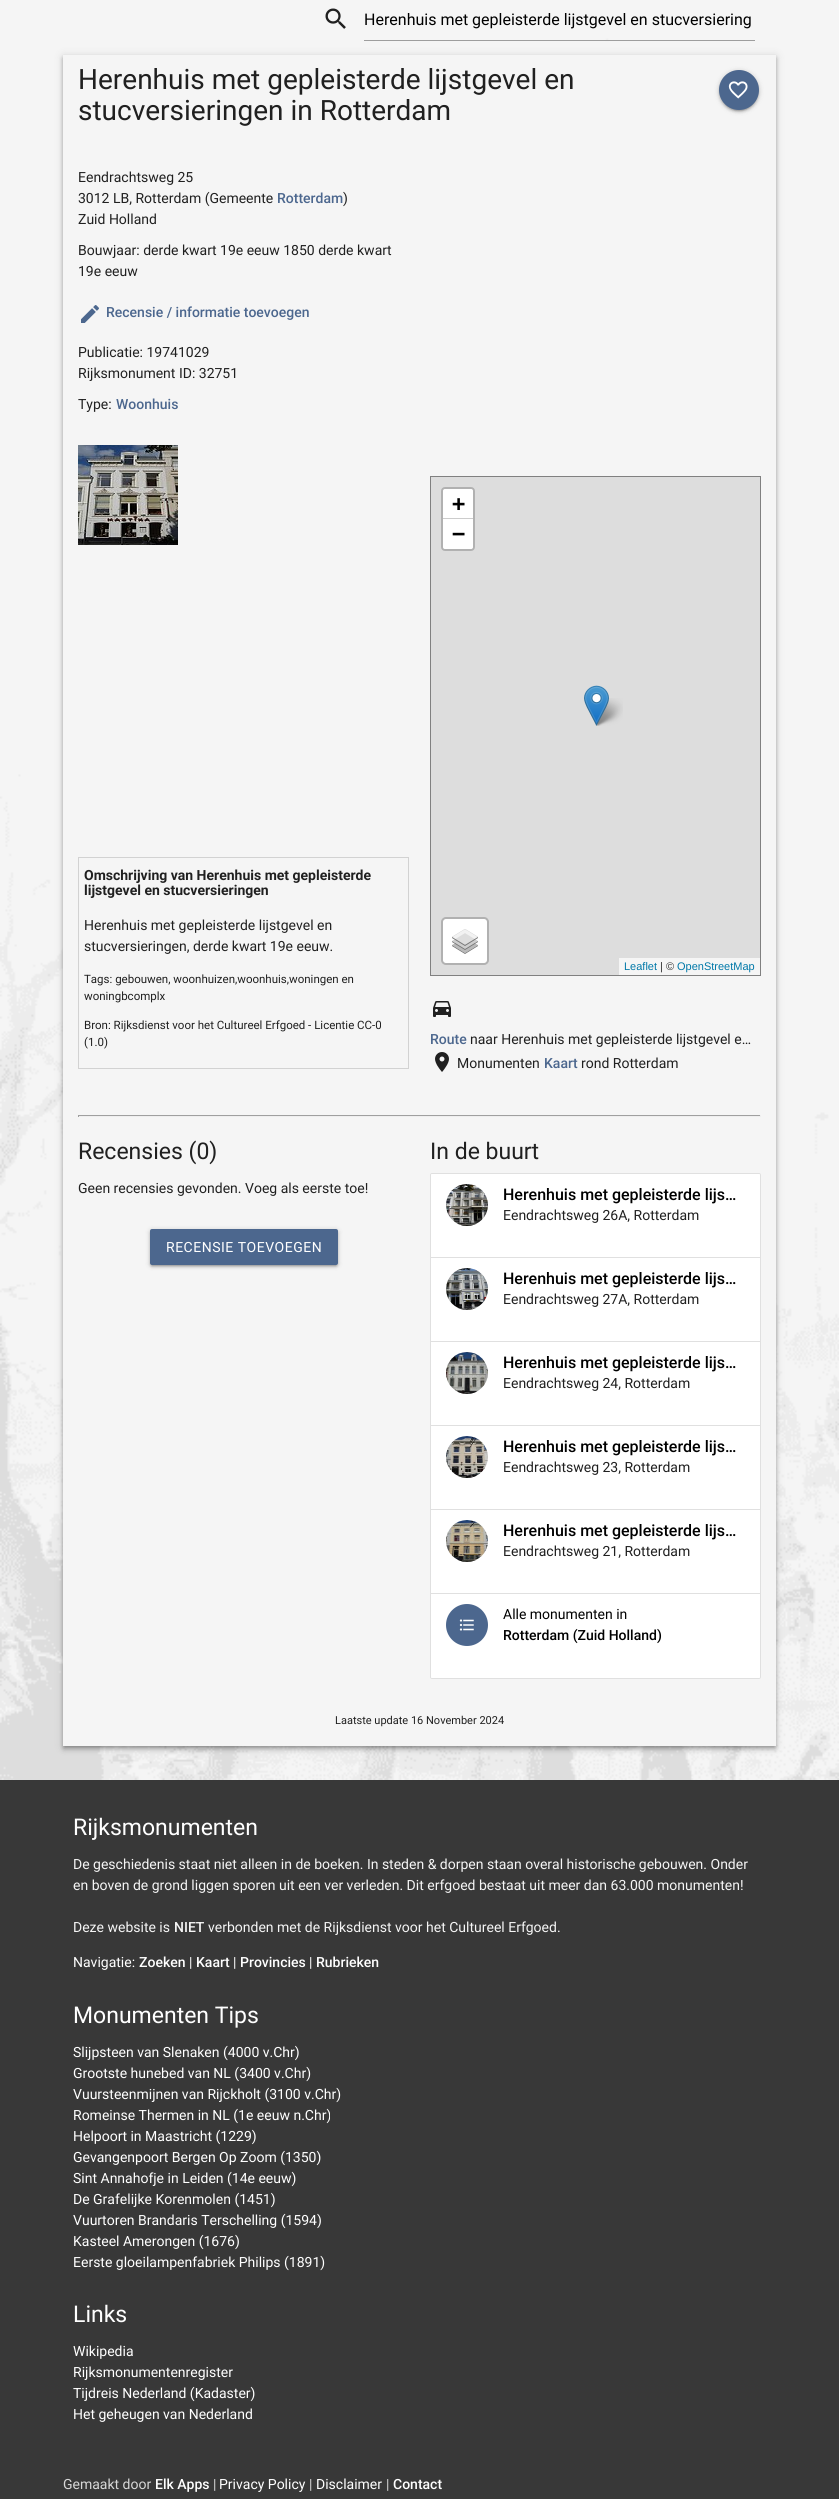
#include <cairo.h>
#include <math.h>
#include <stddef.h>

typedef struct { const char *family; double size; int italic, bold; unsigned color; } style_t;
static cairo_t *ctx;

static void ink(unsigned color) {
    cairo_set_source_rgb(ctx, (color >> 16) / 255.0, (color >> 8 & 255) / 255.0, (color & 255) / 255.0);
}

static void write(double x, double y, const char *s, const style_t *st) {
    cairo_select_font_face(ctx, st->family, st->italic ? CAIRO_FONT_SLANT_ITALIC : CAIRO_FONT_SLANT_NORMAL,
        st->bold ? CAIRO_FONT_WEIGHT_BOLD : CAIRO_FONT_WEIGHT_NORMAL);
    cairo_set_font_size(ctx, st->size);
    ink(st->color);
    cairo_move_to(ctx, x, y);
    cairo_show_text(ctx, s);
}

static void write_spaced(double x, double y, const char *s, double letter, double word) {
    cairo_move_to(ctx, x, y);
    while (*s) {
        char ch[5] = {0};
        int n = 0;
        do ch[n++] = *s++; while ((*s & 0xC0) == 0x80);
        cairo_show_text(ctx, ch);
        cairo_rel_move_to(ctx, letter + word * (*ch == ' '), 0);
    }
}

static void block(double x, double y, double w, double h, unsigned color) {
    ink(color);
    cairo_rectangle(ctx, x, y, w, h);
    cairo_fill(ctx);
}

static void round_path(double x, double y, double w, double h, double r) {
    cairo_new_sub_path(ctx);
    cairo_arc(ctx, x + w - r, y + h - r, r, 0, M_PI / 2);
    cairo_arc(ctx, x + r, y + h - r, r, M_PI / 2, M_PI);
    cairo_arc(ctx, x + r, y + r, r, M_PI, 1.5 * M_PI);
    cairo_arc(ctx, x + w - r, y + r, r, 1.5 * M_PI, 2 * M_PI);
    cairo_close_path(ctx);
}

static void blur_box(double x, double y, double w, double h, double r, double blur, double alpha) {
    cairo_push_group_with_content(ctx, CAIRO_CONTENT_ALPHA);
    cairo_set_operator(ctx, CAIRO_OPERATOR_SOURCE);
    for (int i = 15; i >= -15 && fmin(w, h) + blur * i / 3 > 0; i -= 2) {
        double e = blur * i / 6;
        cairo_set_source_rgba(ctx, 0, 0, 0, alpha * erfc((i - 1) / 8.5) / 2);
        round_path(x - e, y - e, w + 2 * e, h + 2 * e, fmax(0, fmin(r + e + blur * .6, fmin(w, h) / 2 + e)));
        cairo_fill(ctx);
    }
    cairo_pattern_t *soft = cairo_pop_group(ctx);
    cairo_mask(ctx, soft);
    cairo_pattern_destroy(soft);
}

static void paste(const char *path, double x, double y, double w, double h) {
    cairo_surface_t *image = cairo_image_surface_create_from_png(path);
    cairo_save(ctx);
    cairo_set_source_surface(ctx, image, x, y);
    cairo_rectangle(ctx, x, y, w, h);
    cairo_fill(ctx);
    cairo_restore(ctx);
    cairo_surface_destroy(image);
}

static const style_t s1 = {"Roboto", 16, 0, 0, 0x000000};
static const style_t s2 = {"Roboto", 28, 0, 0, 0x202020};
static const style_t s3 = {"Roboto", 14, 0, 0, 0x202020};
static const style_t s4 = {"Roboto Medium", 14, 0, 0, 0x4c678e};
static const style_t s5 = {"Roboto", 14, 0, 1, 0x202020};
static const style_t s6 = {"Roboto", 11.5, 0, 0, 0x202020};
static const style_t s7 = {"DejaVu Sans Mono", 22, 0, 1, 0x000000};
static const style_t s8 = {"Liberation Sans", 11, 0, 0, 0x0078a8};
static const style_t s9 = {"Liberation Sans", 11, 0, 0, 0x333333};
static const style_t s10 = {"Roboto", 23, 0, 0, 0x202020};
static const style_t s11 = {"Roboto Medium", 16, 0, 0, 0x000000};
static const style_t s12 = {"Roboto", 14, 0, 0, 0x000000};
static const style_t s13 = {"Roboto Medium", 14, 0, 0, 0x000000};
static const style_t s14 = {"Roboto", 11, 0, 0, 0x202020};
static const style_t s15 = {"Roboto", 23, 0, 0, 0xffffff};
static const style_t s16 = {"Roboto", 14, 0, 0, 0xf5f5f5};
static const style_t s17 = {"Roboto Medium", 14, 0, 0, 0xf5f5f5};
static const style_t s18 = {"Roboto", 14, 0, 0, 0xffffff};
static const style_t s19 = {"Roboto Medium", 14, 0, 0, 0xffffff};
static const style_t s20 = {"Roboto", 14, 0, 0, 0xd7d7d7};

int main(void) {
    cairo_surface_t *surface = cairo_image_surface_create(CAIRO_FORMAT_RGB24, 839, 2499);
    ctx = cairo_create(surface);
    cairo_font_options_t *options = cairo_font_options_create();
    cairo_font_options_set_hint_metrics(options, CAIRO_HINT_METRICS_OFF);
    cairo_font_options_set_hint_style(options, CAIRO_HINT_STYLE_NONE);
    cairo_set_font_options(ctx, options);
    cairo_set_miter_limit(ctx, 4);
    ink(0xffffff);
    cairo_paint(ctx);
    paste("pic1.png", 0, 0, 839, 1780);
    paste("pic2.png", 325, 8, 21, 21);
    ink(0x000000);
    blur_box(63, 56, 713, 1691, 0, 5, 0.12);
    block(364, 40, 391, 1, 0x9e9e9e);
    write(364, 25, "Herenhuis met gepleisterde lijstgevel en stucversiering", &s1);
    ink(0x000000);
    blur_box(64, 58, 711, 1689, 0, 2, 0.3);
    blur_box(63, 59, 713, 1691, 0, 2.5, 0.14);
    block(63, 55, 713, 1691, 0xf5f5f5);
    write(78, 89, "Herenhuis met gepleisterde lijstgevel en", &s2);
    write(78, 120, "stucversieringen in Rotterdam", &s2);
    ink(0x000000);
    blur_box(719, 71, 40, 40, 20, 2.5, 0.2);
    blur_box(721, 75, 36, 36, 18, 0.5, 0.12);
    blur_box(719, 72, 40, 40, 20, 1, 0.14);
    ink(0x4c678e);
    cairo_arc(ctx, 739, 90, 20, 0, 2 * M_PI);
    cairo_fill(ctx);
    paste("pic3.png", 728, 81, 20, 18);
    write(78, 182, "Eendrachtsweg 25", &s3);
    write(78, 203, "3012 LB, Rotterdam (Gemeente", &s3);
    write(277, 203, "Rotterdam", &s4);
    write(343, 203, ")", &s3);
    write(78, 224, "Zuid Holland", &s3);
    write(78, 255, "Bouwjaar: derde kwart 19e eeuw 1850 derde kwart", &s3);
    write(78, 276, "19e eeuw", &s3);
    paste("pic4.png", 81, 305, 18, 18);
    write(106, 317, "Recensie / informatie toevoegen", &s4);
    write(78, 357, "Publicatie: 19741029", &s3);
    write(78, 378, "Rijksmonument ID: 32751", &s3);
    write(78, 409, "Type:", &s3);
    write(116, 409, "Woonhuis", &s4);
    paste("pic5.png", 78, 445, 100, 100);
    cairo_rectangle(ctx, 78.5, 857.5, 330, 211);
    ink(0xd2d2d2);
    cairo_set_line_width(ctx, 1);
    cairo_stroke(ctx);
    write(84, 880, "Omschrijving van Herenhuis met gepleisterde", &s5);
    write(84, 895, "lijstgevel en stucversieringen", &s5);
    write(84, 930, "Herenhuis met gepleisterde lijstgevel en", &s3);
    write(84, 951, "stucversieringen, derde kwart 19e eeuw.", &s3);
    write(84, 983, "Tags: gebouwen, woonhuizen,woonhuis,woningen en", &s6);
    write(84, 1000, "woningbcomplx", &s6);
    write(84, 1029, "Bron: Rijksdienst voor het Cultureel Erfgoed - Licentie CC-0", &s6);
    write(84, 1046, "(1.0)", &s6);
    ink(0xdddddd);
    cairo_rectangle(ctx, 430.5, 476.5, 330, 499);
    cairo_fill_preserve(ctx);
    ink(0x808080);
    cairo_stroke(ctx);
    round_path(442, 488, 32, 62, 3);
    ink(0xb1b1b1);
    cairo_set_line_width(ctx, 2);
    cairo_stroke(ctx);
    ink(0xffffff);
    cairo_new_path(ctx);
    cairo_move_to(ctx, 445, 489);
    cairo_line_to(ctx, 471, 489);
    cairo_curve_to(ctx, 472, 489, 473, 490, 473, 491);
    cairo_line_to(ctx, 473, 519);
    cairo_line_to(ctx, 443, 519);
    cairo_line_to(ctx, 443, 491);
    cairo_curve_to(ctx, 443, 490, 444, 489, 445, 489);
    cairo_close_path(ctx);
    cairo_fill(ctx);
    block(443, 518, 30, 1, 0xcccccc);
    write(452, 511, "+", &s7);
    ink(0xffffff);
    cairo_new_path(ctx);
    cairo_move_to(ctx, 443, 519);
    cairo_line_to(ctx, 473, 519);
    cairo_line_to(ctx, 473, 547);
    cairo_curve_to(ctx, 473, 548, 472, 549, 471, 549);
    cairo_line_to(ctx, 445, 549);
    cairo_curve_to(ctx, 444, 549, 443, 548, 443, 547);
    cairo_close_path(ctx);
    cairo_fill(ctx);
    write(452, 541, "−", &s7);
    ink(0xffffff);
    round_path(442, 918, 46, 46, 4);
    cairo_fill_preserve(ctx);
    ink(0xb1b1b1);
    cairo_stroke(ctx);
    paste("pic6.png", 452, 929, 26, 25);
    block(619, 958, 141, 17, 0xf5f5f5);
    write(624, 970, "Leaflet", &s8);
    write(660, 970, "| ©", &s9);
    write(677, 970, "OpenStreetMap", &s8);
    paste("pic8.png", 594, 698, 29, 28);
    paste("pic7.png", 584, 685, 25, 41);
    paste("pic9.png", 433, 1001, 18, 16);
    write(430, 1044, "Route", &s4);
    write(470, 1044, "naar Herenhuis met gepleisterde lijstgevel e…", &s3);
    paste("pic10.png", 435, 1052, 14, 20);
    write(457, 1068, "Monumenten", &s3);
    write(544, 1068, "Kaart", &s4);
    write(581, 1068, "rond Rotterdam", &s3);
    block(78, 1115, 683, 1, 0x9f9f9f);
    block(760, 1115, 1, 2, 0xeeeeee);
    block(78, 1116, 683, 1, 0xeeeeee);
    block(78, 1115, 1, 2, 0x9f9f9f);
    write(78, 1159, "Recensies (0)", &s10);
    write(78, 1193, "Geen recensies gevonden. Voeg als eerste toe!", &s3);
    ink(0x000000);
    blur_box(150, 1230, 188, 36, 2, 2.5, 0.2);
    blur_box(152, 1234, 184, 32, 0, 0.5, 0.12);
    blur_box(150, 1231, 188, 36, 2, 1, 0.14);
    ink(0x4c678e);
    round_path(150, 1229, 188, 36, 2);
    cairo_fill(ctx);
    ink(0xffffff);
    write_spaced(166, 1252, "RECENSIE TOEVOEGEN", 0.5, 0);
    write(430, 1159, "In de buurt", &s10);
    round_path(430.5, 1173.5, 330, 505, 1.5);
    ink(0xe0e0e0);
    cairo_set_line_width(ctx, 1);
    cairo_stroke(ctx);
    ink(0xffffff);
    cairo_new_path(ctx);
    cairo_move_to(ctx, 432, 1174);
    cairo_line_to(ctx, 759, 1174);
    cairo_curve_to(ctx, 759.5, 1174, 760, 1174.5, 760, 1175);
    cairo_line_to(ctx, 760, 1258);
    cairo_line_to(ctx, 431, 1258);
    cairo_line_to(ctx, 431, 1175);
    cairo_curve_to(ctx, 431, 1174.5, 431.5, 1174, 432, 1174);
    cairo_close_path(ctx);
    cairo_fill(ctx);
    block(431, 1257, 329, 1, 0xe0e0e0);
    paste("pic11.png", 446, 1184, 42, 42);
    write(503, 1200, "Herenhuis met gepleisterde lijs…", &s11);
    write(503, 1220, "Eendrachtsweg 26A, Rotterdam", &s3);
    block(431, 1258, 329, 83, 0xffffff);
    block(431, 1341, 329, 1, 0xe0e0e0);
    paste("pic12.png", 446, 1268, 42, 42);
    write(503, 1284, "Herenhuis met gepleisterde lijs…", &s11);
    write(503, 1304, "Eendrachtsweg 27A, Rotterdam", &s3);
    block(431, 1342, 329, 83, 0xffffff);
    block(431, 1425, 329, 1, 0xe0e0e0);
    paste("pic13.png", 446, 1352, 42, 42);
    write(503, 1368, "Herenhuis met gepleisterde lijs…", &s11);
    write(503, 1388, "Eendrachtsweg 24, Rotterdam", &s3);
    block(431, 1426, 329, 83, 0xffffff);
    block(431, 1509, 329, 1, 0xe0e0e0);
    paste("pic14.png", 446, 1436, 42, 42);
    write(503, 1452, "Herenhuis met gepleisterde lijs…", &s11);
    write(503, 1472, "Eendrachtsweg 23, Rotterdam", &s3);
    block(431, 1510, 329, 83, 0xffffff);
    block(431, 1593, 329, 1, 0xe0e0e0);
    paste("pic15.png", 446, 1520, 42, 42);
    write(503, 1536, "Herenhuis met gepleisterde lijs…", &s11);
    write(503, 1556, "Eendrachtsweg 21, Rotterdam", &s3);
    ink(0xffffff);
    cairo_new_path(ctx);
    cairo_move_to(ctx, 431, 1594);
    cairo_line_to(ctx, 760, 1594);
    cairo_line_to(ctx, 760, 1677);
    cairo_curve_to(ctx, 760, 1677.5, 759.5, 1678, 759, 1678);
    cairo_line_to(ctx, 432, 1678);
    cairo_curve_to(ctx, 431.5, 1678, 431, 1677.5, 431, 1677);
    cairo_close_path(ctx);
    cairo_fill(ctx);
    ink(0x4c678e);
    cairo_arc(ctx, 467, 1625, 21, 0, 2 * M_PI);
    cairo_fill(ctx);
    paste("pic16.png", 459, 1619, 15, 12);
    write(503, 1619, "Alle monumenten in", &s12);
    write(503, 1640, "Rotterdam (Zuid Holland)", &s13);
    write(335, 1724, "Laatste update 16 November 2024", &s14);
    block(0, 1780, 839, 719, 0x383838);
    write(73, 1835, "Rijksmonumenten", &s15);
    write(73, 1869, "De geschiedenis staat niet alleen in de boeken. In steden & dorpen staan overal historische gebouwen. Onder", &s16);
    write(73, 1890, "en boven de grond liggen sporen uit een ver verleden. Dit erfgoed bestaat uit meer dan 63.000 monumenten!", &s16);
    write(73, 1932, "Deze website is", &s16);
    write(174, 1932, "NIET", &s17);
    write(208, 1932, "verbonden met de Rijksdienst voor het Cultureel Erfgoed.", &s16);
    write(73, 1967, "Navigatie:", &s18);
    write(139, 1967, "Zoeken", &s19);
    write(189, 1967, "|", &s18);
    write(196, 1967, "Kaart", &s19);
    write(233, 1967, "|", &s18);
    write(240, 1967, "Provincies", &s19);
    write(309, 1967, "|", &s18);
    write(316, 1967, "Rubrieken", &s19);
    write(73, 2023, "Monumenten Tips", &s15);
    write(73, 2057, "Slijpsteen van Slenaken (4000 v.Chr)", &s18);
    write(73, 2078, "Grootste hunebed van NL (3400 v.Chr)", &s18);
    write(73, 2099, "Vuursteenmijnen van Rijckholt (3100 v.Chr)", &s18);
    write(73, 2120, "Romeinse Thermen in NL (1e eeuw n.Chr)", &s18);
    write(73, 2141, "Helpoort in Maastricht (1229)", &s18);
    write(73, 2162, "Gevangenpoort Bergen Op Zoom (1350)", &s18);
    write(73, 2183, "Sint Annahofje in Leiden (14e eeuw)", &s18);
    write(73, 2204, "De Grafelijke Korenmolen (1451)", &s18);
    write(73, 2225, "Vuurtoren Brandaris Terschelling (1594)", &s18);
    write(73, 2246, "Kasteel Amerongen (1676)", &s18);
    write(73, 2267, "Eerste gloeilampenfabriek Philips (1891)", &s18);
    write(73, 2322, "Links", &s15);
    write(73, 2356, "Wikipedia", &s18);
    write(73, 2377, "Rijksmonumentenregister", &s18);
    write(73, 2398, "Tijdreis Nederland (Kadaster)", &s18);
    write(73, 2419, "Het geheugen van Nederland", &s18);
    write(63, 2489, "Gemaakt door", &s20);
    write(155, 2489, "Elk Apps", &s19);
    write(213, 2489, "|", &s20);
    write(219, 2489, "Privacy Policy", &s18);
    write(309, 2489, "|", &s20);
    write(316, 2489, "Disclaimer", &s18);
    write(386, 2489, "|", &s20);
    write(393, 2489, "Contact", &s19);
    cairo_surface_write_to_png(surface, "screenshot.png");
    cairo_font_options_destroy(options);
    cairo_destroy(ctx);
    cairo_surface_destroy(surface);
    return 0;
}
